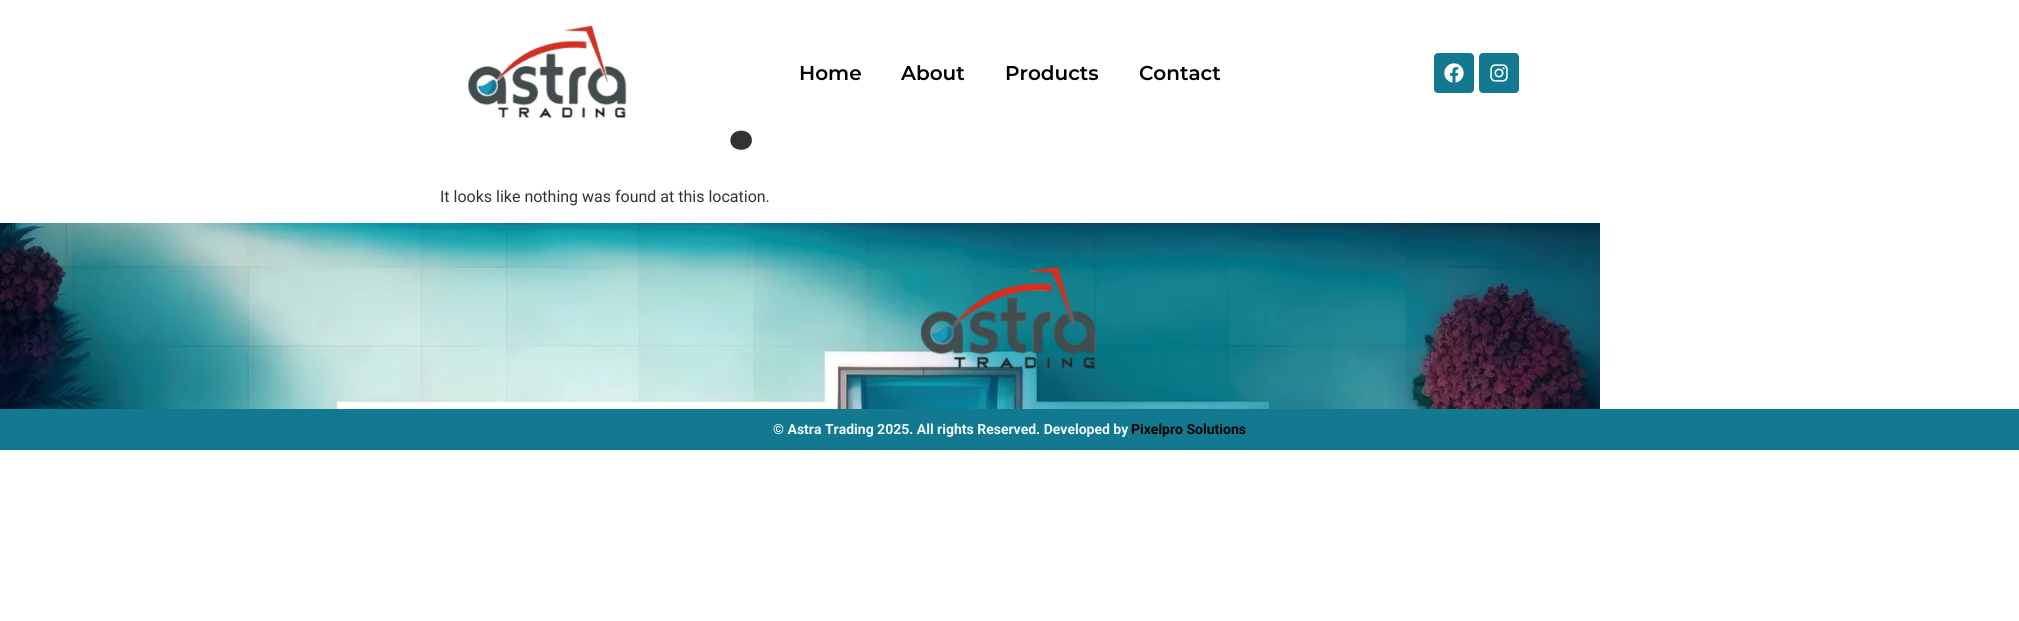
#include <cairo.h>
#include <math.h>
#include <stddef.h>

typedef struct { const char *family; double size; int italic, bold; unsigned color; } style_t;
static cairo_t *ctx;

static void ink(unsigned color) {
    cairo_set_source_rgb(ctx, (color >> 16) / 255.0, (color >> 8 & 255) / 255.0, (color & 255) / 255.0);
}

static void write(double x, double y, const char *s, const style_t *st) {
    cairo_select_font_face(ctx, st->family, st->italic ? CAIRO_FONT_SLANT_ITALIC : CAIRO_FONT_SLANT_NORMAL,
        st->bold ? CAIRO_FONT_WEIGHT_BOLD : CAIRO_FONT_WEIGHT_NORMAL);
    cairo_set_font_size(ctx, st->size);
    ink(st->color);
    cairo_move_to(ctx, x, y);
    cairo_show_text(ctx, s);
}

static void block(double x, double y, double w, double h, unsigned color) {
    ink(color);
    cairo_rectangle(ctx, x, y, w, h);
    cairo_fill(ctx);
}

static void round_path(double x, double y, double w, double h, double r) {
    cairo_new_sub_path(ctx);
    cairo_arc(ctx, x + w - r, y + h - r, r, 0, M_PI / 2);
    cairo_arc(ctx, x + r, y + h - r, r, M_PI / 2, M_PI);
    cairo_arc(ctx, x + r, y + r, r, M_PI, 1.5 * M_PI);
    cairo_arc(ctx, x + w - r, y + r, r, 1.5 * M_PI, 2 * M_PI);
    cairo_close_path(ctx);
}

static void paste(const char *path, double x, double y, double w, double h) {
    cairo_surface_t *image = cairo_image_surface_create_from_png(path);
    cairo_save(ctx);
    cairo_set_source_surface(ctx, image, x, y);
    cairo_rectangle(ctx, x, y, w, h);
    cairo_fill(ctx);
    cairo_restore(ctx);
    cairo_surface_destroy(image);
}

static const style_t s1 = {"Montserrat SemiBold", 20, 0, 0, 0x000000};
static const style_t s2 = {"Poppins ExtraBold", 94, 0, 0, 0x333333};
static const style_t s3 = {"Roboto", 16, 0, 0, 0x333333};
static const style_t s4 = {"Roboto", 14, 0, 1, 0xf1f9ff};
static const style_t s5 = {"Roboto", 14, 0, 1, 0x000000};

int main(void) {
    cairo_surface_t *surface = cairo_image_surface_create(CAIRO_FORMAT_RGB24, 2019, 621);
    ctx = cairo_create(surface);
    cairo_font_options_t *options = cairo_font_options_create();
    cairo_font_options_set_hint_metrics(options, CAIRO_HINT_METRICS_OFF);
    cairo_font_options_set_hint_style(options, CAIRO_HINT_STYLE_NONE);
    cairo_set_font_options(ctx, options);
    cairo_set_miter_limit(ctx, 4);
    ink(0xffffff);
    cairo_paint(ctx);
    paste("pic1.png", 467, 25, 160, 93);
    write(799, 80, "Home", &s1);
    write(901, 80, "About", &s1);
    write(1005, 80, "Products", &s1);
    write(1139, 80, "Contact", &s1);
    ink(0x127991);
    round_path(1434, 53, 40, 40, 4);
    cairo_fill(ctx);
    paste("pic2.png", 1444, 63, 20, 20);
    round_path(1479, 53, 40, 40, 4);
    cairo_fill(ctx);
    paste("pic3.png", 1490, 64, 18, 18);
    write(727, 149, ".", &s2);
    write(440, 202, "It looks like nothing was found at this location.", &s3);
    paste("pic4.png", 0, 223, 1600, 186);
    paste("pic5.png", 920, 265, 177, 104);
    block(0, 409, 2019, 41, 0x127991);
    write(773, 434, "© Astra Trading 2025. All rights Reserved. Developed by", &s4);
    write(1131, 434, "Pixelpro Solutions", &s5);
    cairo_surface_write_to_png(surface, "screenshot.png");
    cairo_font_options_destroy(options);
    cairo_destroy(ctx);
    cairo_surface_destroy(surface);
    return 0;
}
